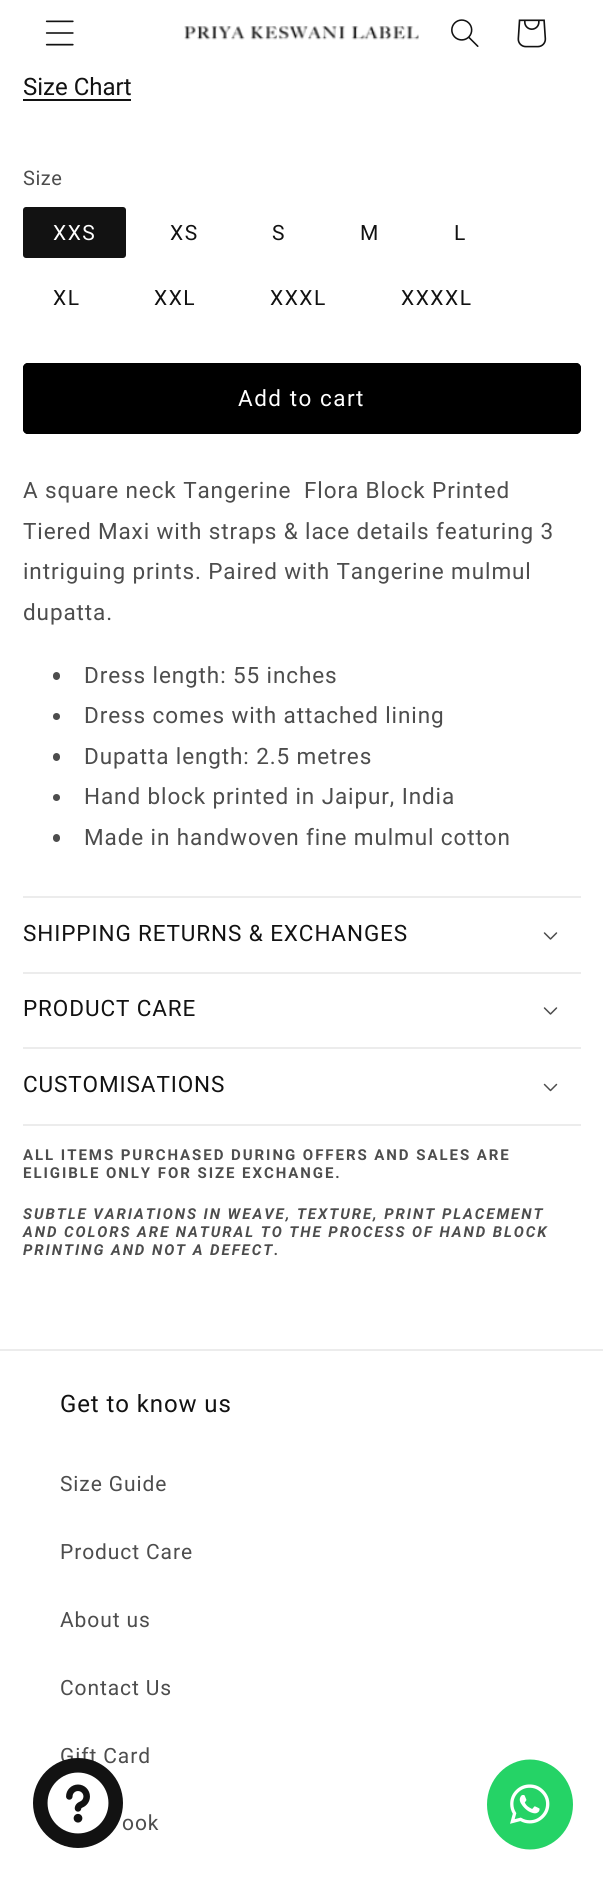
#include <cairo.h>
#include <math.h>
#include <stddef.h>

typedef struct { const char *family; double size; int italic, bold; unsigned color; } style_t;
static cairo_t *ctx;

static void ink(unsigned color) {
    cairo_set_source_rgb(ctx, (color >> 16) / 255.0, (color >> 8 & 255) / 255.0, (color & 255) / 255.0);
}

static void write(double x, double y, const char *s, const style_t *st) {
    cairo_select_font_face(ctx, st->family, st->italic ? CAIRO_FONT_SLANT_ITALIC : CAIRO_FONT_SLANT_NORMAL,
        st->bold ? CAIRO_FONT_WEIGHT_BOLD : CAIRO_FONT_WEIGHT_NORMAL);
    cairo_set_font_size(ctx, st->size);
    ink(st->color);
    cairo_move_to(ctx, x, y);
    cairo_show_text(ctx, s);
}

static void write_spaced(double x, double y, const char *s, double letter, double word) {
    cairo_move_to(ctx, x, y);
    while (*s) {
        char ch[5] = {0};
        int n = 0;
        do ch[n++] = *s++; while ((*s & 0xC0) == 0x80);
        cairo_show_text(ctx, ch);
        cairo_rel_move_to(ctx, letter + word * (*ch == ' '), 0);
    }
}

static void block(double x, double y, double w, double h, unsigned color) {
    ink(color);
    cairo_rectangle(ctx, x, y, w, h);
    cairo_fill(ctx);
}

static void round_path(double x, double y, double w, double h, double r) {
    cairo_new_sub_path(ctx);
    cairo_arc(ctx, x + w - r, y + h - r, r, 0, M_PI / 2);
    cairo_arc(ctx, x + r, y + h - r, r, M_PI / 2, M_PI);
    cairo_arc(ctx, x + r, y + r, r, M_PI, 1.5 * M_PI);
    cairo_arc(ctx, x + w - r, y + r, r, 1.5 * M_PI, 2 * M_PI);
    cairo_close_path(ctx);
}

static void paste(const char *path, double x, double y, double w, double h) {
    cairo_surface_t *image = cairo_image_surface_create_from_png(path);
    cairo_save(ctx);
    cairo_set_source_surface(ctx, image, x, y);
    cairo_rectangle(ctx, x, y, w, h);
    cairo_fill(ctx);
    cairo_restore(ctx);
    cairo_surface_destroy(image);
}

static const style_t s1 = {"Roboto", 24, 0, 0, 0x121212};

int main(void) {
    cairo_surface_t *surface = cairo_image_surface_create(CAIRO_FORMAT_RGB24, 603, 1879);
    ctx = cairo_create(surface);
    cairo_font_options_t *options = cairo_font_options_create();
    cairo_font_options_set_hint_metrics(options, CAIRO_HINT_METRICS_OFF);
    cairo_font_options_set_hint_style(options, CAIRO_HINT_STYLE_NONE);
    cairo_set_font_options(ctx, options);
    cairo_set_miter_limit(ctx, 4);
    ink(0xffffff);
    cairo_paint(ctx);
    paste("pic1.png", 45, 20, 29, 26);
    paste("pic2.png", 184, 26, 235, 14);
    paste("pic3.png", 451, 19, 28, 28);
    paste("pic4.png", 517, 19, 30, 29);
    write(23, 95, "Size Chart", &s1);
    block(23, 99, 108, 2, 0x121212);
    cairo_set_font_size(ctx, 20);
    ink(0x4d4d4d);
    write_spaced(23, 185, "Size", 0.5, 0);
    ink(0x121212);
    round_path(23, 207, 103, 51, 3);
    cairo_fill(ctx);
    cairo_set_font_size(ctx, 21);
    ink(0xffffff);
    write_spaced(53, 240, "XXS", 1.5, 0);
    ink(0x121212);
    write_spaced(170, 240, "XS", 1.5, 0);
    write_spaced(272, 240, "S", 1.5, 0);
    write_spaced(360, 240, "M", 1.5, 0);
    write_spaced(454, 240, "L", 1.5, 0);
    write_spaced(53, 305, "XL", 1.5, 0);
    write_spaced(154, 305, "XXL", 1.5, 0);
    write_spaced(270, 305, "XXXL", 1.5, 0);
    write_spaced(401, 305, "XXXXL", 1.5, 0);
    ink(0x000000);
    round_path(23, 363, 558, 71, 5);
    cairo_fill(ctx);
    round_path(24, 364, 556, 69, 4);
    cairo_stroke(ctx);
    cairo_set_font_size(ctx, 22.5);
    ink(0xffffff);
    write_spaced(238, 406, "Add to cart", 1.5, 0);
    ink(0x4d4d4d);
    write_spaced(23, 498, "A square neck Tangerine", 0.9, 0);
    write_spaced(304, 498, "Flora Block Printed", 0.9, 0);
    write_spaced(23, 539, "Tiered Maxi with straps & lace details featuring 3", 0.9, 0);
    write_spaced(23, 579, "intriguing prints. Paired with Tangerine mulmul", 0.9, 0);
    write_spaced(23, 620, "dupatta.", 0.9, 0);
    round_path(53, 672, 7, 8, 3.5);
    cairo_fill(ctx);
    write_spaced(84, 683, "Dress length: 55 inches", 0.9, 0);
    cairo_new_path(ctx);
    cairo_arc(ctx, 56.5, 716.5, 3.5, 0, 2 * M_PI);
    cairo_fill(ctx);
    write_spaced(84, 723, "Dress comes with attached lining", 0.9, 0);
    round_path(53, 753, 7, 8, 3.5);
    cairo_fill(ctx);
    write_spaced(84, 764, "Dupatta length: 2.5 metres", 0.9, 0);
    cairo_new_path(ctx);
    cairo_arc(ctx, 56.5, 797.5, 3.5, 0, 2 * M_PI);
    cairo_fill(ctx);
    write_spaced(84, 804, "Hand block printed in Jaipur, India", 0.9, 0);
    round_path(53, 834, 7, 8, 3.5);
    cairo_fill(ctx);
    write_spaced(84, 845, "Made in handwoven fine mulmul cotton", 0.9, 0);
    block(23, 896, 558, 2, 0xececec);
    block(23, 972, 558, 2, 0xececec);
    ink(0x121212);
    write_spaced(23, 941, "SHIPPING RETURNS & EXCHANGES", 0.9, 0);
    paste("pic5.png", 543, 932, 15, 8);
    block(23, 1047, 558, 2, 0xececec);
    ink(0x121212);
    write_spaced(23, 1016, "PRODUCT CARE", 0.9, 0);
    paste("pic5.png", 543, 1007, 15, 8);
    block(23, 1124, 558, 2, 0xececec);
    ink(0x121212);
    write_spaced(23, 1092, "CUSTOMISATIONS", 0.9, 0);
    paste("pic6.png", 543, 1083, 15, 9);
    cairo_select_font_face(ctx, "Roboto", CAIRO_FONT_SLANT_NORMAL, CAIRO_FONT_WEIGHT_BOLD);
    cairo_set_font_size(ctx, 15);
    ink(0x4d4d4d);
    write_spaced(23, 1160, "ALL ITEMS PURCHASED DURING OFFERS AND SALES ARE", 1.95, 0);
    write_spaced(23, 1178, "ELIGIBLE ONLY FOR SIZE EXCHANGE.", 1.95, 0);
    cairo_select_font_face(ctx, "Roboto", CAIRO_FONT_SLANT_ITALIC, CAIRO_FONT_WEIGHT_BOLD);
    write_spaced(23, 1219, "SUBTLE VARIATIONS IN WEAVE, TEXTURE, PRINT PLACEMENT", 1.95, 0);
    write_spaced(23, 1237, "AND COLORS ARE NATURAL TO THE PROCESS OF HAND BLOCK", 1.95, 0);
    write_spaced(23, 1255, "PRINTING AND NOT A DEFECT.", 1.95, 0);
    block(0, 1349, 603, 2, 0xececec);
    cairo_select_font_face(ctx, "Roboto", CAIRO_FONT_SLANT_NORMAL, CAIRO_FONT_WEIGHT_NORMAL);
    cairo_set_font_size(ctx, 24);
    ink(0x121212);
    write_spaced(60, 1412, "Get to know us", 0.9, 0);
    cairo_set_font_size(ctx, 21);
    ink(0x4d4d4d);
    write_spaced(60, 1491, "Size Guide", 0.9, 0);
    write_spaced(60, 1559, "Product Care", 0.9, 0);
    write_spaced(60, 1627, "About us", 0.9, 0);
    write_spaced(60, 1695, "Contact Us", 0.9, 0);
    write_spaced(60, 1763, "Gift Card", 0.9, 0);
    write_spaced(122, 1830, "ook", 0.9, 0);
    ink(0x121212);
    cairo_new_path(ctx);
    cairo_arc(ctx, 78, 1803, 45, 0, 2 * M_PI);
    cairo_fill(ctx);
    paste("pic7.png", 47, 1772, 62, 62);
    ink(0x25d366);
    cairo_new_path(ctx);
    cairo_move_to(ctx, 530, 1759.5);
    cairo_curve_to(ctx, 553.5, 1759.5, 573, 1779.5, 573, 1804.5);
    cairo_curve_to(ctx, 573, 1829.5, 553.5, 1849.5, 530, 1849.5);
    cairo_curve_to(ctx, 506.5, 1849.5, 487, 1829.5, 487, 1804.5);
    cairo_curve_to(ctx, 487, 1779.5, 506.5, 1759.5, 530, 1759.5);
    cairo_close_path(ctx);
    cairo_fill(ctx);
    paste("pic8.png", 510, 1784, 40, 40);
    cairo_surface_write_to_png(surface, "screenshot.png");
    cairo_font_options_destroy(options);
    cairo_destroy(ctx);
    cairo_surface_destroy(surface);
    return 0;
}
